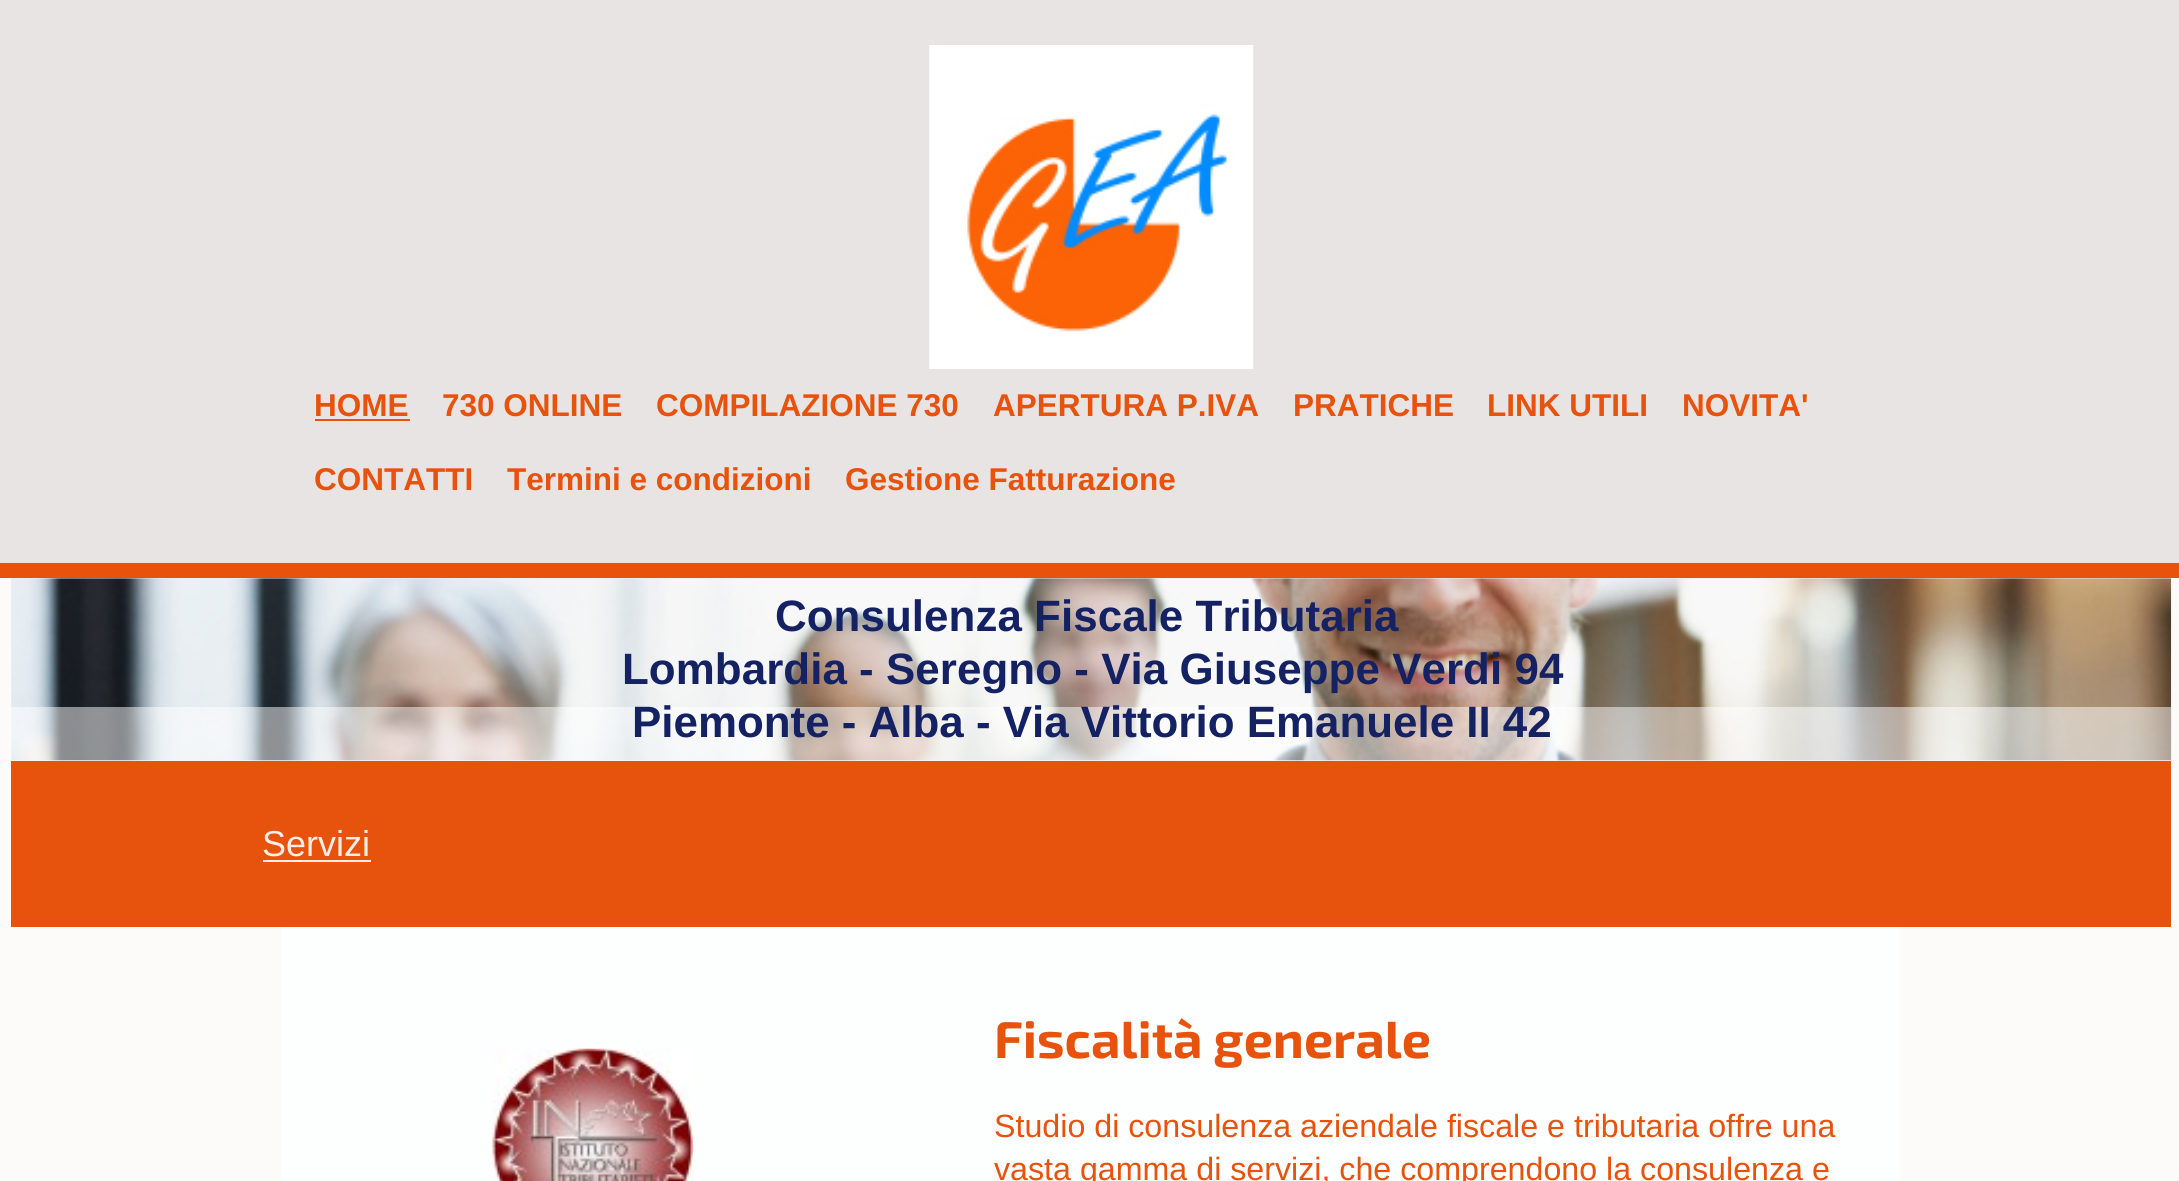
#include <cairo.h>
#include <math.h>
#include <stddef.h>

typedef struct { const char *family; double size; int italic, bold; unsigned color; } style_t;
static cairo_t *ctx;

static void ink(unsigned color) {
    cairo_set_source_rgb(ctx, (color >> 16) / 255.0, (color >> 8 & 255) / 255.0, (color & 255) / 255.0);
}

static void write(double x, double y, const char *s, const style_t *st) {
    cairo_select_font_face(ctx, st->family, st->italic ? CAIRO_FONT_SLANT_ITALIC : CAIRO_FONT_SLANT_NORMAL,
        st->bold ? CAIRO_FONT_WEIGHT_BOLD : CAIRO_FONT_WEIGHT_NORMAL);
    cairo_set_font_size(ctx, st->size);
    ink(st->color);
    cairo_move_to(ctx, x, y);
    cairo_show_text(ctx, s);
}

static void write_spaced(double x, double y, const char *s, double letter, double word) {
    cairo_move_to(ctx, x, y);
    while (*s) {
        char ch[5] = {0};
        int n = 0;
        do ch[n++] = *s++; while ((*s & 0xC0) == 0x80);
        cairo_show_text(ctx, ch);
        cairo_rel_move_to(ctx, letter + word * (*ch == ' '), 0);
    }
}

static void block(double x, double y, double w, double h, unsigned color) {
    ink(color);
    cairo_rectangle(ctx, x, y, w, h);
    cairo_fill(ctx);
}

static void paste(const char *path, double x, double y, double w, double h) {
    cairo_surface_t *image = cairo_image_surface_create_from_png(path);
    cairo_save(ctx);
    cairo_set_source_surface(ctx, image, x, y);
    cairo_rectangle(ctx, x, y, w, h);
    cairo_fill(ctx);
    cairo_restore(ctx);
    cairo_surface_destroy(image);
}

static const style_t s1 = {"Liberation Sans", 31.5, 0, 1, 0xe7520d};
static const style_t s2 = {"Liberation Sans", 43.9, 0, 1, 0x142264};
static const style_t s3 = {"Liberation Sans", 36, 0, 0, 0xfdeee7};
static const style_t s4 = {"Exo 2", 51.75, 0, 1, 0xe7520d};
static const style_t s5 = {"Arimo", 32.2, 0, 0, 0xe7520d};

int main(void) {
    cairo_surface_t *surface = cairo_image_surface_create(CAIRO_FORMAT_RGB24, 2179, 1181);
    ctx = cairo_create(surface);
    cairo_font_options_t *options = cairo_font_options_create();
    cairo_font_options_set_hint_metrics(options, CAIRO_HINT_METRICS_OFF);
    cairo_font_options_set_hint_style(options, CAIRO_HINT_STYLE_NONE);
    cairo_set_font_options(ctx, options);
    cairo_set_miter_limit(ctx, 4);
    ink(0xfdfbf9);
    cairo_paint(ctx);
    block(0, 0, 2179, 563, 0xe7e4e3);
    block(0, 563, 2179, 15, 0xe7520d);
    paste("pic1.png", 929, 45, 325, 324);
    write(314, 416, "HOME", &s1);
    block(315, 419, 95, 2, 0xe7520d);
    write(442, 416, "730 ONLINE", &s1);
    write(656, 416, "COMPILAZIONE 730", &s1);
    write(993, 416, "APERTURA P.IVA", &s1);
    write(1293, 416, "PRATICHE", &s1);
    write(1487, 416, "LINK UTILI", &s1);
    write(1682, 416, "NOVITA'", &s1);
    write(314, 490, "CONTATTI", &s1);
    write(507, 490, "Termini e condizioni", &s1);
    write(845, 490, "Gestione Fatturazione", &s1);
    block(11, 578, 2160, 183, 0xeeeeee);
    paste("pic2.png", 11, 578, 2161, 183);
    cairo_set_font_size(ctx, 43.9);
    ink(0x142264);
    write_spaced(775, 631, "Consulenza Fiscale Tributaria", 0.05, 0);
    write_spaced(622, 684, "Lombardia - Seregno - Via Giuseppe Verdi 94", 0.05, 0);
    cairo_set_source_rgba(ctx, 1, 1, 1, 0.5);
    cairo_rectangle(ctx, 11, 707, 2160, 54);
    cairo_fill(ctx);
    write(632, 737, "Piemonte - Alba - Via Vittorio Emanuele II 42", &s2);
    block(11, 761, 2160, 166, 0xe7520d);
    write(262, 856, "Servizi", &s3);
    block(263, 860, 108, 2, 0xfdeee7);
    block(281, 927, 1620, 254, 0xfdfefe);
    paste("pic3.png", 490, 1048, 203, 133);
    write(994, 1058, "Fiscalità generale", &s4);
    write(994, 1137, "Studio di consulenza aziendale fiscale e tributaria offre una", &s5);
    write(994, 1180, "vasta gamma di servizi, che comprendono la consulenza e", &s5);
    cairo_surface_write_to_png(surface, "screenshot.png");
    cairo_font_options_destroy(options);
    cairo_destroy(ctx);
    cairo_surface_destroy(surface);
    return 0;
}
